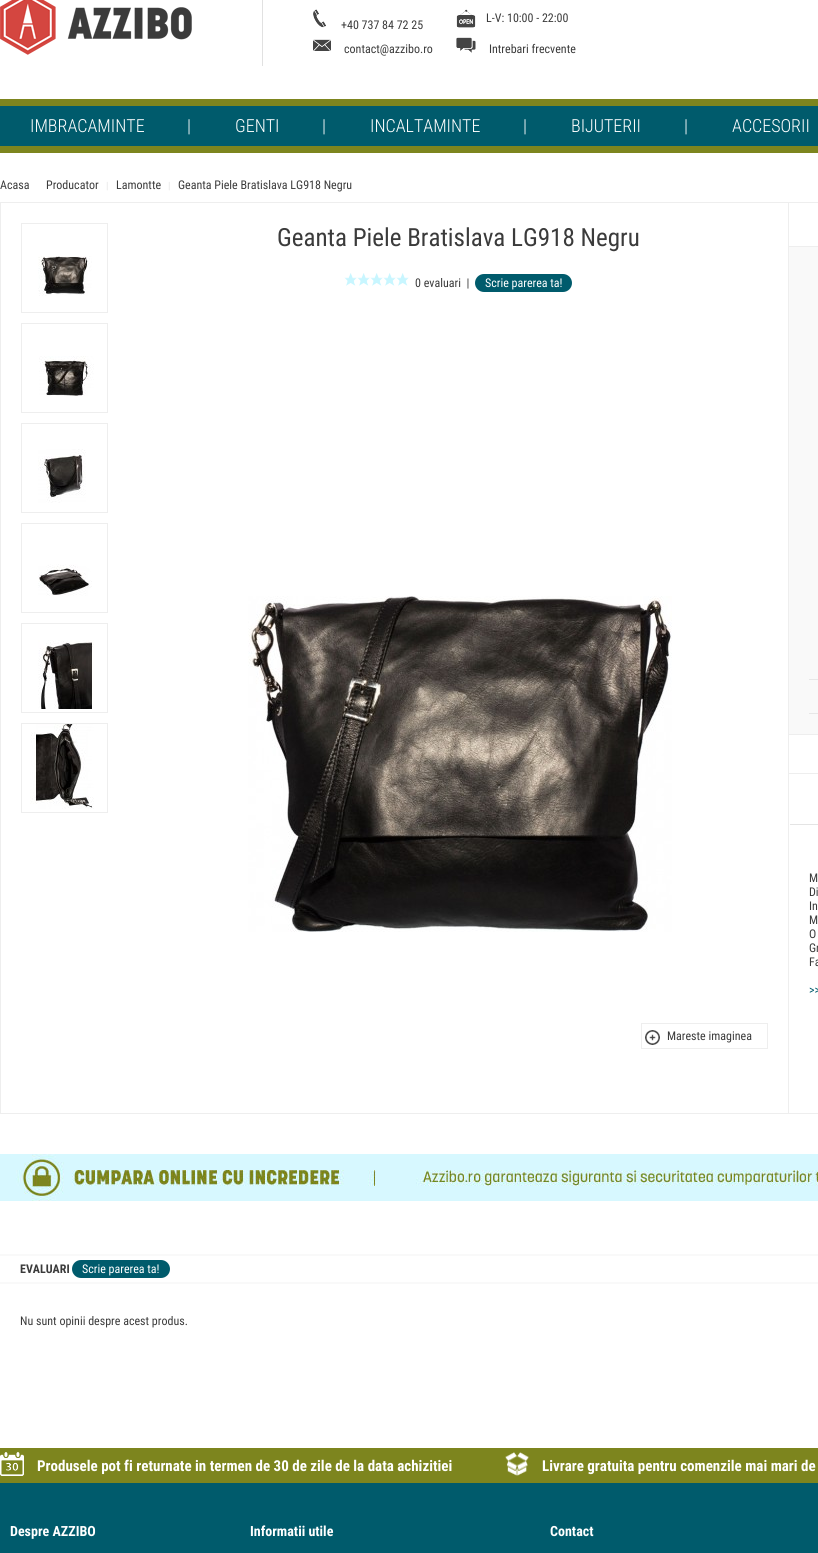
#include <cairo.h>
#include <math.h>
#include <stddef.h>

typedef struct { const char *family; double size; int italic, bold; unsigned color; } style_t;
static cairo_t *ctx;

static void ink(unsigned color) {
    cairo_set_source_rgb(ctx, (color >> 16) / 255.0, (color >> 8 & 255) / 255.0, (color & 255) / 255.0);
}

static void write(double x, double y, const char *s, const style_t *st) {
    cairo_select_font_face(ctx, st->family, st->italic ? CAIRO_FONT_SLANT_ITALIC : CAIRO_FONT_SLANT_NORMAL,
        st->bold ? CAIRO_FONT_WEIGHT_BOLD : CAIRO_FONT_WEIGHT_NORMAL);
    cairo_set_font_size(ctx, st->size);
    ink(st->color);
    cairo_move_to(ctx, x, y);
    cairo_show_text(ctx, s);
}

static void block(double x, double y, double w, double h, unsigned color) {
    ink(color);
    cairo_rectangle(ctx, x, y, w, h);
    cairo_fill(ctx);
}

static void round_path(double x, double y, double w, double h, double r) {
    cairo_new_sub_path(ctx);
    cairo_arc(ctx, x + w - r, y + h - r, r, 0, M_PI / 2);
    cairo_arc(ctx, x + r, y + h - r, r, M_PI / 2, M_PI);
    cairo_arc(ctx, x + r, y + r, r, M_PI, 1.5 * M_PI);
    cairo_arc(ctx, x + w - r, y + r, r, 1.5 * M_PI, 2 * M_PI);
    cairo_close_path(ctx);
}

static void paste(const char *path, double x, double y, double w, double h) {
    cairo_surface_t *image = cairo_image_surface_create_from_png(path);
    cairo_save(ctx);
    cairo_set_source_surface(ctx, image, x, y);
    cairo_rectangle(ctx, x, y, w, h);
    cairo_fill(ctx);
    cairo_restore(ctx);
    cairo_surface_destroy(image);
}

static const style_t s1 = {"Roboto Condensed", 12, 0, 0, 0x3b3b3b};
static const style_t s2 = {"Roboto Condensed Light", 18, 0, 0, 0xffffff};
static const style_t s3 = {"Roboto Condensed", 10, 0, 0, 0xe6e6e6};
static const style_t s4 = {"Roboto Condensed", 25, 0, 0, 0x3b3b3b};
static const style_t s5 = {"Roboto Condensed", 12, 0, 0, 0xffffff};
static const style_t s6 = {"Roboto Condensed", 12, 0, 0, 0x005b6c};
static const style_t s7 = {"Roboto Condensed", 12, 0, 1, 0x3b3b3b};
static const style_t s8 = {"Roboto Condensed", 15, 0, 1, 0xffffff};
static const style_t s9 = {"Roboto Condensed", 14, 0, 1, 0xffffff};

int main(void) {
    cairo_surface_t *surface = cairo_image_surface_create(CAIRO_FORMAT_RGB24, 818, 1553);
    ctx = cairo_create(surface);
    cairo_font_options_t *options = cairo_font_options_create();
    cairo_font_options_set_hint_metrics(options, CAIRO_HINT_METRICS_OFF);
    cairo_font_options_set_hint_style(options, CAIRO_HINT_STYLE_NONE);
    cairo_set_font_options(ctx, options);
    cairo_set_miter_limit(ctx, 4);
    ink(0xffffff);
    cairo_paint(ctx);
    paste("pic1.png", 0, 0, 192, 55);
    block(262, 0, 1, 66, 0xe1e1e1);
    paste("pic2.png", 313, 9, 13, 19);
    paste("pic3.png", 456, 9, 20, 19);
    write(486, 22, "L-V: 10:00 - 22:00", &s1);
    write(341, 29, "+40 737 84 72 25", &s1);
    paste("pic4.png", 313, 39, 18, 12);
    write(344, 53, "contact@azzibo.ro", &s1);
    paste("pic5.png", 456, 37, 20, 16);
    write(489, 53, "Intrebari frecvente", &s1);
    block(0, 106, 818, 40, 0x005b6c);
    block(0, 99, 818, 7, 0x7d851e);
    block(0, 146, 818, 7, 0x7d851e);
    write(30, 132, "IMBRACAMINTE", &s2);
    write(187, 132, "|", &s2);
    write(235, 132, "GENTI", &s2);
    write(322, 132, "|", &s2);
    write(370, 132, "INCALTAMINTE", &s2);
    write(523, 132, "|", &s2);
    write(571, 132, "BIJUTERII", &s2);
    write(684, 132, "|", &s2);
    write(732, 132, "ACCESORII", &s2);
    write(0, 189, "Acasa", &s1);
    write(46, 189, "Producator", &s1);
    write(106, 189, "|", &s3);
    write(116, 189, "Lamontte", &s1);
    write(168, 189, "|", &s3);
    write(178, 189, "Geanta Piele Bratislava LG918 Negru", &s1);
    cairo_rectangle(ctx, 0.5, 202.5, 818, 911);
    ink(0xeeeeee);
    cairo_set_line_width(ctx, 1);
    cairo_stroke(ctx);
    block(788, 203, 1, 910, 0xeeeeee);
    cairo_rectangle(ctx, 21.5, 223.5, 86, 89);
    cairo_stroke(ctx);
    paste("pic6.png", 38, 256, 54, 40);
    cairo_rectangle(ctx, 21.5, 323.5, 86, 89);
    cairo_stroke(ctx);
    paste("pic7.png", 39, 356, 55, 40);
    cairo_rectangle(ctx, 21.5, 423.5, 86, 89);
    cairo_stroke(ctx);
    paste("pic8.png", 38, 449, 48, 54);
    cairo_rectangle(ctx, 21.5, 523.5, 86, 89);
    cairo_stroke(ctx);
    paste("pic9.png", 38, 564, 54, 32);
    cairo_rectangle(ctx, 21.5, 623.5, 86, 89);
    cairo_stroke(ctx);
    paste("pic10.png", 38, 640, 56, 69);
    cairo_rectangle(ctx, 21.5, 723.5, 86, 89);
    cairo_stroke(ctx);
    paste("pic11.png", 30, 724, 64, 85);
    write(277, 246, "Geanta Piele Bratislava LG918 Negru", &s4);
    paste("pic12.png", 344, 273, 65, 13);
    write(415, 287, "0 evaluari  |", &s1);
    ink(0x005b6c);
    round_path(475, 274, 97, 18, 9);
    cairo_fill(ctx);
    write(485, 287, "Scrie parerea ta!", &s5);
    paste("pic13.png", 248, 596, 424, 336);
    paste("pic14.png", 645, 1030, 15, 15);
    cairo_rectangle(ctx, 641.5, 1023.5, 126, 25);
    ink(0xeeeeee);
    cairo_stroke(ctx);
    write(667, 1040, "Mareste imaginea", &s1);
    block(789, 246, 29, 1, 0xeeeeee);
    block(789, 247, 29, 487, 0xf9f9f9);
    block(789, 734, 29, 1, 0xeeeeee);
    block(809, 679, 9, 1, 0xe7e7e7);
    block(809, 713, 9, 1, 0xe7e7e7);
    block(789, 773, 29, 1, 0xeeeeee);
    block(790, 824, 28, 1, 0xe4e4e4);
    write(809, 882, "M", &s1);
    write(809, 896, "Di", &s1);
    write(809, 910, "In", &s1);
    write(809, 924, "M", &s1);
    write(809, 938, "O", &s1);
    write(809, 952, "Gr", &s1);
    write(809, 966, "Fa", &s1);
    write(809, 994, ">>", &s6);
    paste("pic15.png", 0, 1154, 818, 47);
    block(0, 1254, 818, 2, 0xf9f9f9);
    block(0, 1282, 818, 2, 0xf9f9f9);
    write(20, 1273, "EVALUARI", &s7);
    ink(0x005b6c);
    round_path(72, 1260, 98, 18, 9);
    cairo_fill(ctx);
    write(82, 1273, "Scrie parerea ta!", &s5);
    write(20, 1325, "Nu sunt opinii despre acest produs.", &s1);
    block(0, 1483, 818, 70, 0x005b6c);
    block(0, 1448, 818, 35, 0x7d851e);
    paste("pic16.png", 0, 1452, 24, 24);
    write(37, 1471, "Produsele pot fi returnate in termen de 30 de zile de la data achizitiei", &s8);
    paste("pic17.png", 505, 1452, 24, 24);
    write(542, 1471, "Livrare gratuita pentru comenzile mai mari de", &s8);
    write(10, 1536, "Despre AZZIBO", &s9);
    write(250, 1536, "Informatii utile", &s9);
    write(550, 1536, "Contact", &s9);
    cairo_surface_write_to_png(surface, "screenshot.png");
    cairo_font_options_destroy(options);
    cairo_destroy(ctx);
    cairo_surface_destroy(surface);
    return 0;
}
